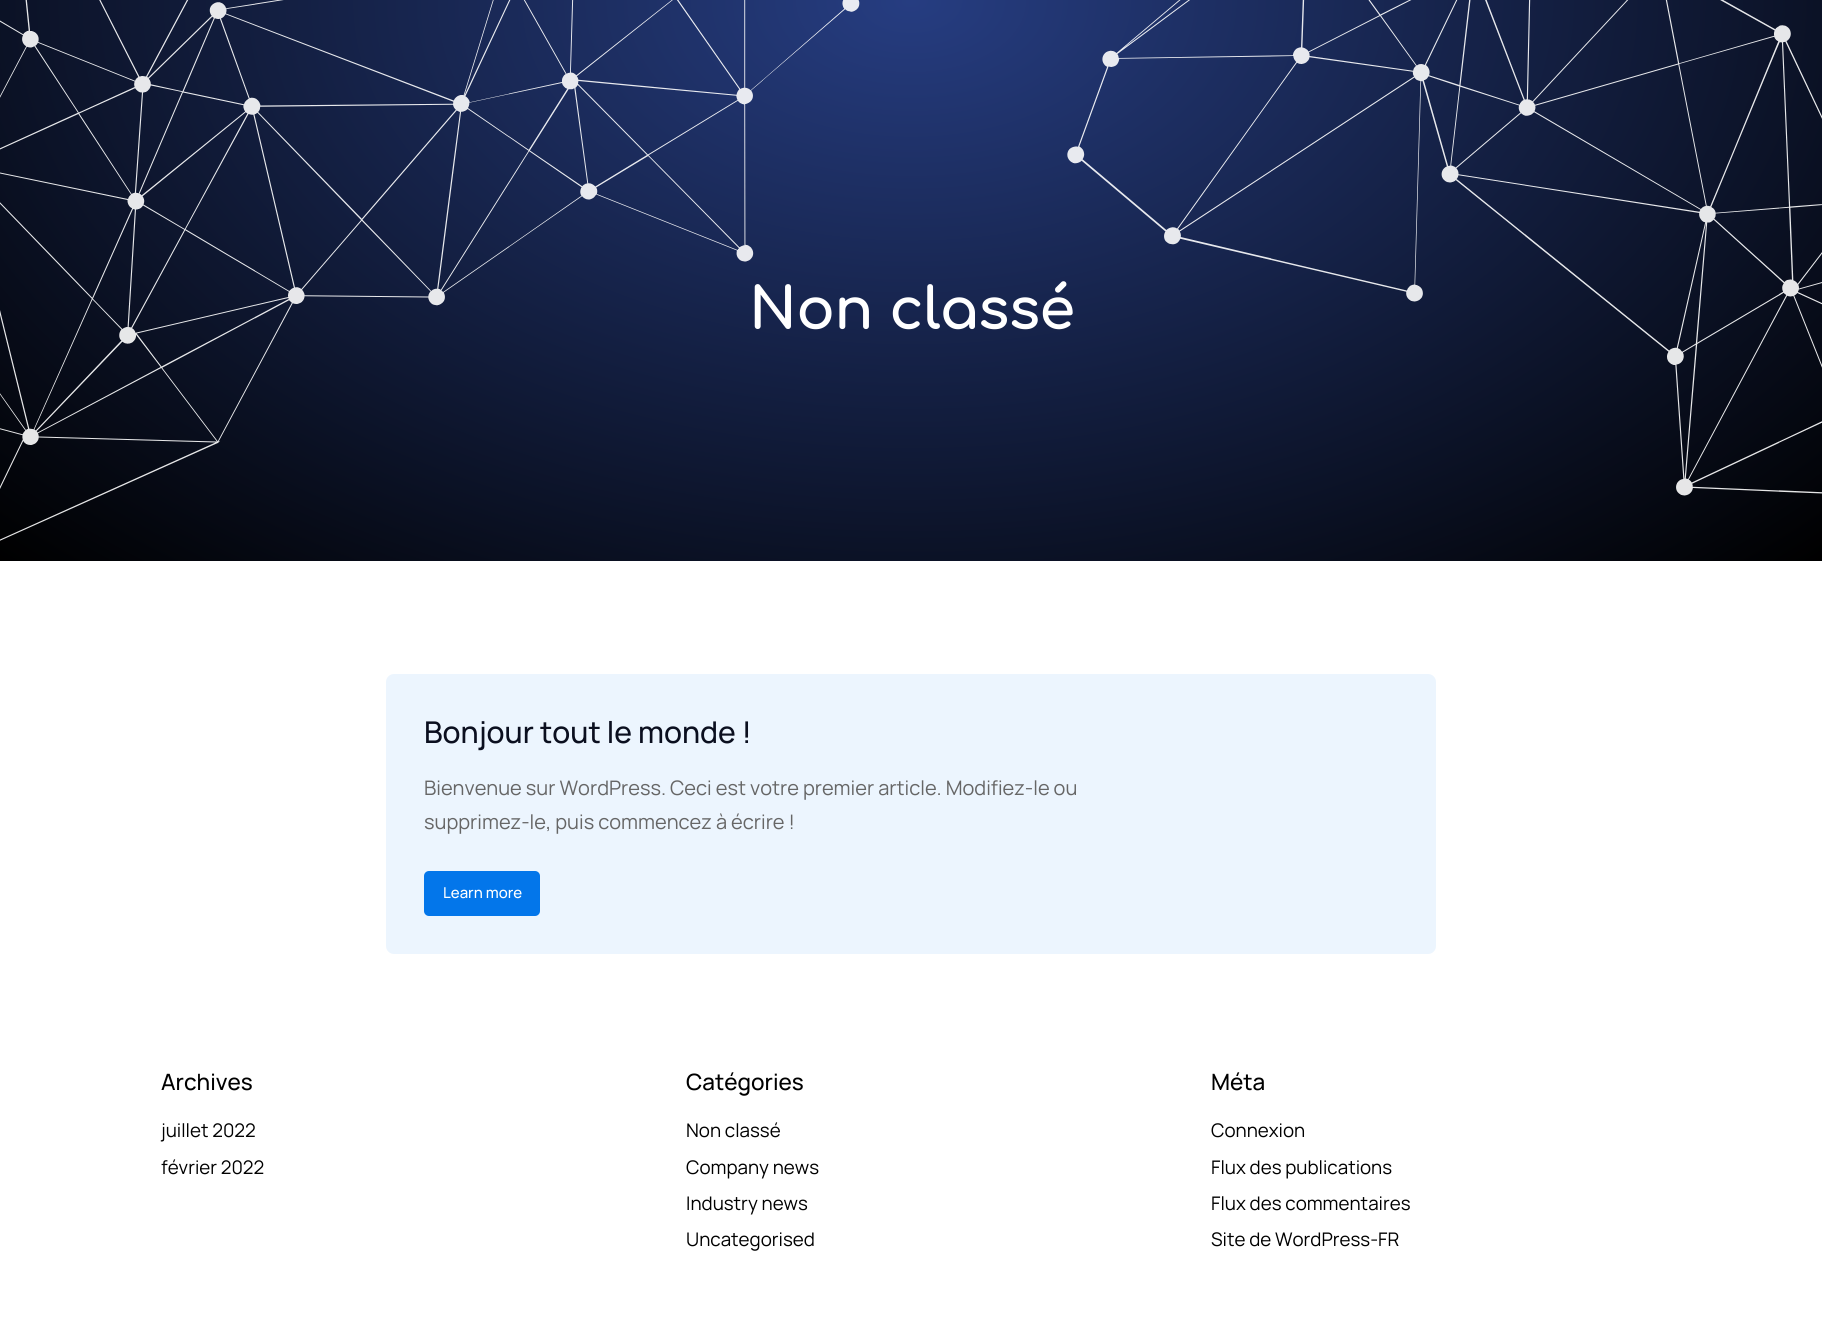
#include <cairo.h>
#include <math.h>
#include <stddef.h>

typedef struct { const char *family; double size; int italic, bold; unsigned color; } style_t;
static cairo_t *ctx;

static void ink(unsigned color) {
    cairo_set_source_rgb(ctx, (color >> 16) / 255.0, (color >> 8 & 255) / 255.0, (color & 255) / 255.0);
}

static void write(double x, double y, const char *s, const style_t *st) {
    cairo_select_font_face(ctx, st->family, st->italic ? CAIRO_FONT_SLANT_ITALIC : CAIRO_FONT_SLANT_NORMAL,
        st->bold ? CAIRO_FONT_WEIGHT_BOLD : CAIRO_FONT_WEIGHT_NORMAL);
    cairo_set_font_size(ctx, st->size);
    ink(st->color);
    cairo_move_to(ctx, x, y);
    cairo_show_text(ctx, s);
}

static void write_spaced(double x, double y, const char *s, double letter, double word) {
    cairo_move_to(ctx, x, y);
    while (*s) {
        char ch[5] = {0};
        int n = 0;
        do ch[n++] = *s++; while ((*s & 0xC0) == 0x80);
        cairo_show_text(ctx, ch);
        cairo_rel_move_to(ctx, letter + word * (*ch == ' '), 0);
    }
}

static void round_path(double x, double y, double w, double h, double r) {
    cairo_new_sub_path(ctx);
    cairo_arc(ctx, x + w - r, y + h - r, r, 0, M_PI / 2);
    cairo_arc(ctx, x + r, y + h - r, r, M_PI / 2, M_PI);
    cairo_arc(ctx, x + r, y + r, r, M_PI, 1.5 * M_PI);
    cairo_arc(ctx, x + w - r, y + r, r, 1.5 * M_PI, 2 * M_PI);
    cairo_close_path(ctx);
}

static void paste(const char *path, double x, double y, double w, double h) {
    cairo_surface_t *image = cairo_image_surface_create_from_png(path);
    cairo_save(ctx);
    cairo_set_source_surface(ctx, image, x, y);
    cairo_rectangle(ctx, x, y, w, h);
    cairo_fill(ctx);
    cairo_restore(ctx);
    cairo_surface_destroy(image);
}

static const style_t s1 = {"Manrope Medium", 30, 0, 0, 0x0b0f1f};
static const style_t s2 = {"Manrope", 20, 0, 0, 0x666666};
static const style_t s3 = {"Manrope Medium", 15, 0, 0, 0xffffff};
static const style_t s4 = {"Manrope Medium", 22.5, 0, 0, 0x000000};
static const style_t s5 = {"Manrope", 18.75, 0, 0, 0x000000};

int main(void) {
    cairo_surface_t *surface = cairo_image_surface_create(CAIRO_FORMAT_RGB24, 1822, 1320);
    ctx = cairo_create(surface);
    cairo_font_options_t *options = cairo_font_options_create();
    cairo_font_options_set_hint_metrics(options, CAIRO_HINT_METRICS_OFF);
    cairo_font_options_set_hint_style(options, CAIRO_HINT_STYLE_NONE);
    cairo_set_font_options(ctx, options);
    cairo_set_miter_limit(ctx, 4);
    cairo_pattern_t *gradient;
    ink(0xffffff);
    cairo_paint(ctx);
    gradient = cairo_pattern_create_radial(0, 0, 0, 0, 0, 1);
    cairo_pattern_set_matrix(gradient, &(cairo_matrix_t){1.0 / 1289, 0, 0, 1.0 / 794, -1.0 * 911 / 1289, -1.0 * 0 / 794});
    cairo_pattern_add_color_stop_rgba(gradient, 0, 0.149, 0.239, 0.506, 1);
    cairo_pattern_add_color_stop_rgba(gradient, 1, 0, 0, 0, 1);
    cairo_set_source(ctx, gradient);
    cairo_pattern_destroy(gradient);
    cairo_rectangle(ctx, 0, 0, 1822, 561);
    cairo_fill(ctx);
    paste("pic1.png", 0, 0, 1822, 541);
    cairo_select_font_face(ctx, "Comfortaa", CAIRO_FONT_SLANT_NORMAL, CAIRO_FONT_WEIGHT_BOLD);
    cairo_set_font_size(ctx, 57.5);
    ink(0xffffff);
    write_spaced(749, 329, "Non classé", -0.6, 0);
    ink(0xecf5fe);
    round_path(386, 674, 1050, 280, 8);
    cairo_fill(ctx);
    write(424, 743, "Bonjour tout le monde !", &s1);
    write(424, 795, "Bienvenue sur WordPress. Ceci est votre premier article. Modifiez-le ou", &s2);
    write(424, 829, "supprimez-le, puis commencez à écrire !", &s2);
    ink(0x0376ea);
    round_path(424, 871, 116, 45, 5);
    cairo_fill(ctx);
    write(443, 898, "Learn more", &s3);
    write(161, 1090, "Archives", &s4);
    write(161, 1137, "juillet 2022", &s5);
    write(161, 1174, "février 2022", &s5);
    write(686, 1090, "Catégories", &s4);
    write(686, 1137, "Non classé", &s5);
    write(686, 1174, "Company news", &s5);
    write(686, 1210, "Industry news", &s5);
    write(686, 1246, "Uncategorised", &s5);
    write(1211, 1090, "Méta", &s4);
    write(1211, 1137, "Connexion", &s5);
    write(1211, 1174, "Flux des publications", &s5);
    write(1211, 1210, "Flux des commentaires", &s5);
    write(1211, 1246, "Site de WordPress-FR", &s5);
    cairo_surface_write_to_png(surface, "screenshot.png");
    cairo_font_options_destroy(options);
    cairo_destroy(ctx);
    cairo_surface_destroy(surface);
    return 0;
}
